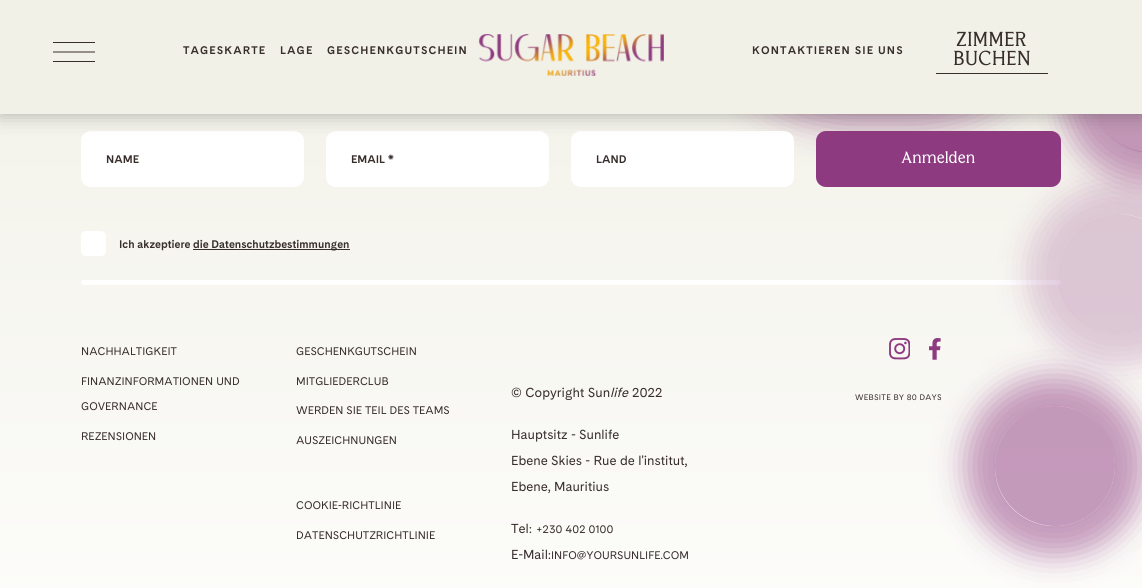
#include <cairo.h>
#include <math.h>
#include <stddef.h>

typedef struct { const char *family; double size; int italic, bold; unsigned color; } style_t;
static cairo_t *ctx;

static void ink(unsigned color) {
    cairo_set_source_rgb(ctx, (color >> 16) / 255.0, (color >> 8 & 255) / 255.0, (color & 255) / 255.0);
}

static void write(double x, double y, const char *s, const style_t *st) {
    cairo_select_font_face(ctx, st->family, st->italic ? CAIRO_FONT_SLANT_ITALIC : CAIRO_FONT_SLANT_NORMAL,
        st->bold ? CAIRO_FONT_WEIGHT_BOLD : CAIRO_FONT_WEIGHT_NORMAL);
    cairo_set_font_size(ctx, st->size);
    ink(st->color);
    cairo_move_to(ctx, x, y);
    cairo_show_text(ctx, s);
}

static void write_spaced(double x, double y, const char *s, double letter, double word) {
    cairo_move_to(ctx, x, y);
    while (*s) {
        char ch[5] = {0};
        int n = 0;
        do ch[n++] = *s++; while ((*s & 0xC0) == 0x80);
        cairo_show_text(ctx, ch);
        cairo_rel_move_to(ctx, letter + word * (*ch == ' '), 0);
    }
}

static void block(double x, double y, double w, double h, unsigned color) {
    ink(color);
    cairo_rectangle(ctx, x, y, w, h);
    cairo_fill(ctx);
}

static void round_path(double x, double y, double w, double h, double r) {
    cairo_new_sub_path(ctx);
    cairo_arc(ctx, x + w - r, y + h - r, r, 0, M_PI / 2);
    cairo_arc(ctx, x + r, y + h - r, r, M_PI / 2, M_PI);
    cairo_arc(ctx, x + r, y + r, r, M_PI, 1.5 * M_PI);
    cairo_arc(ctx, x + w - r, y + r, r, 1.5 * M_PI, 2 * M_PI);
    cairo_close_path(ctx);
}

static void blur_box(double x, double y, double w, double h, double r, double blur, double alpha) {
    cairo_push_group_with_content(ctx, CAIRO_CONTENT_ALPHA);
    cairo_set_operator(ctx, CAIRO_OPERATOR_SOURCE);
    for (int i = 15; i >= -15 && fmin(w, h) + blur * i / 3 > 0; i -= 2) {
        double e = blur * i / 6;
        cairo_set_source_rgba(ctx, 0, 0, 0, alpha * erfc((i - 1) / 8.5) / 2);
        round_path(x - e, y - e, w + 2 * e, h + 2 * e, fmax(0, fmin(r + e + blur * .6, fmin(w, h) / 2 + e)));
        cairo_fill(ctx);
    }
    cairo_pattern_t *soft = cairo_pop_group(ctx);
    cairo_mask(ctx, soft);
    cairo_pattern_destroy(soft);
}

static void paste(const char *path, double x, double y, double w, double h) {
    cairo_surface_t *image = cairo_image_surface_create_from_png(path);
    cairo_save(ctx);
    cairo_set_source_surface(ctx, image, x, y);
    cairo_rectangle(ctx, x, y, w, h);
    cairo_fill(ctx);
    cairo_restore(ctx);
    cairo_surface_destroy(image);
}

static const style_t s1 = {"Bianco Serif", 20, 0, 0, 0x382e2c};
static const style_t s2 = {"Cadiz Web", 11, 0, 1, 0x382e2c};
static const style_t s3 = {"Bianco Serif", 16, 0, 0, 0xffffff};
static const style_t s4 = {"Cadiz Web", 11, 0, 0, 0x382e2c};
static const style_t s5 = {"Cadiz Web", 13, 0, 0, 0x382e2c};
static const style_t s6 = {"Cadiz Web", 13, 1, 0, 0x382e2c};

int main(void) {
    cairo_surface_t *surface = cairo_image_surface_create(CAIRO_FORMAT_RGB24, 1142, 588);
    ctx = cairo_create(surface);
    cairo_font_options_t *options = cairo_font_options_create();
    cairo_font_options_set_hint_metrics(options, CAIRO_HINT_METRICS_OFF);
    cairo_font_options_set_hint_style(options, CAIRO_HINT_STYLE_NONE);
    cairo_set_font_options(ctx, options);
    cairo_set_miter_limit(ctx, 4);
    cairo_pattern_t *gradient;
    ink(0xffffff);
    cairo_paint(ctx);
    gradient = cairo_pattern_create_linear(571, 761, 571, 23);
    cairo_pattern_add_color_stop_rgba(gradient, 0, 1, 1, 1, 1);
    cairo_pattern_add_color_stop_rgba(gradient, 1, 0.949, 0.945, 0.91, 1);
    cairo_set_source(ctx, gradient);
    cairo_pattern_destroy(gradient);
    cairo_rectangle(ctx, 0, 114, 1142, 474);
    cairo_fill(ctx);
    ink(0x8e3a80);
    blur_box(663, -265, 440, 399, 220, 15, 0.35);
    blur_box(693, -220, 380, 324, 190, 10, 0.35);
    ink(0xffffff);
    round_path(81, 131, 223, 56, 10);
    cairo_fill(ctx);
    round_path(326, 131, 223, 56, 10);
    cairo_fill(ctx);
    round_path(571, 131, 223, 56, 10);
    cairo_fill(ctx);
    cairo_save(ctx);
    cairo_set_fill_rule(ctx, CAIRO_FILL_RULE_EVEN_ODD);
    cairo_new_path(ctx);
    cairo_move_to(ctx, 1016, 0);
    cairo_line_to(ctx, 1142, 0);
    cairo_line_to(ctx, 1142, 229);
    cairo_line_to(ctx, 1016, 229);
    cairo_close_path(ctx);
    cairo_move_to(ctx, 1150, 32.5);
    cairo_curve_to(ctx, 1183, 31.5, 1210.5, 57.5, 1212, 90.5);
    cairo_curve_to(ctx, 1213, 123.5, 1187, 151.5, 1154, 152.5);
    cairo_curve_to(ctx, 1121, 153.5, 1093, 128, 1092, 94.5);
    cairo_curve_to(ctx, 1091, 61.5, 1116.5, 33.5, 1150, 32.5);
    cairo_close_path(ctx);
    cairo_clip(ctx);
    ink(0x8e3a80);
    blur_box(1062, 3, 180, 180, 90, 15, 0.5);
    cairo_restore(ctx);
    round_path(81, 280, 980, 5, 2.5);
    cairo_fill(ctx);
    cairo_set_source_rgba(ctx, 0.557, 0.227, 0.502, 0.5);
    cairo_new_path(ctx);
    cairo_move_to(ctx, 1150, 33);
    cairo_curve_to(ctx, 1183, 31, 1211, 57, 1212, 90);
    cairo_curve_to(ctx, 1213, 124, 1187, 151, 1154, 153);
    cairo_curve_to(ctx, 1121, 154, 1093, 128, 1092, 95);
    cairo_curve_to(ctx, 1091, 62, 1117, 34, 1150, 33);
    cairo_close_path(ctx);
    cairo_fill(ctx);
    cairo_save(ctx);
    cairo_set_fill_rule(ctx, CAIRO_FILL_RULE_EVEN_ODD);
    cairo_new_path(ctx);
    cairo_move_to(ctx, 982, 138);
    cairo_line_to(ctx, 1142, 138);
    cairo_line_to(ctx, 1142, 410);
    cairo_line_to(ctx, 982, 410);
    cairo_close_path(ctx);
    cairo_move_to(ctx, 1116, 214);
    cairo_curve_to(ctx, 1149, 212.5, 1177, 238.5, 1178, 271.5);
    cairo_curve_to(ctx, 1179.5, 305, 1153.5, 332.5, 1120.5, 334);
    cairo_curve_to(ctx, 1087, 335, 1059.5, 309, 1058, 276);
    cairo_curve_to(ctx, 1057, 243, 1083, 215, 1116, 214);
    cairo_close_path(ctx);
    cairo_clip(ctx);
    ink(0x8e3a80);
    blur_box(1028, 184, 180, 180, 90, 15, 0.25);
    cairo_restore(ctx);
    ink(0x8e3a80);
    round_path(816, 131, 245, 56, 10);
    cairo_fill(ctx);
    ink(0x000000);
    blur_box(0, 0, 1142, 114, 0, 10, 0.3);
    block(0, 0, 1142, 114, 0xf2f1e8);
    block(53, 42, 42, 1, 0x382e2c);
    cairo_new_path(ctx);
    cairo_move_to(ctx, 53, 52);
    cairo_line_to(ctx, 95, 52);
    cairo_set_line_width(ctx, 1);
    cairo_stroke(ctx);
    block(53, 61, 42, 1, 0x382e2c);
    cairo_select_font_face(ctx, "Cadiz Web", CAIRO_FONT_SLANT_NORMAL, CAIRO_FONT_WEIGHT_BOLD);
    cairo_set_font_size(ctx, 11);
    write_spaced(183, 54, "TAGESKARTE", 1.1, 0);
    write_spaced(280, 54, "LAGE", 1.1, 0);
    write_spaced(327, 54, "GESCHENKGUTSCHEIN", 1.1, 0);
    paste("pic1.png", 478, 34, 186, 42);
    write_spaced(752, 54, "KONTAKTIEREN SIE UNS", 1.1, 0);
    write(956, 46, "ZIMMER", &s1);
    write(953, 65, "BUCHEN", &s1);
    block(936, 73, 112, 1, 0x382e2c);
    write(106, 163, "NAME", &s2);
    write(351, 163, "EMAIL *", &s2);
    write(596, 163, "LAND", &s2);
    write(901, 163, "Anmelden", &s3);
    round_path(81, 231, 25, 25, 5);
    cairo_fill(ctx);
    write(119, 248, "Ich akzeptiere", &s2);
    block(193, 249, 157, 1, 0x382e2c);
    write(193, 248, "die Datenschutzbestimmungen", &s2);
    write(81, 355, "NACHHALTIGKEIT", &s4);
    write(81, 385, "FINANZINFORMATIONEN UND", &s4);
    write(81, 410, "GOVERNANCE", &s4);
    write(81, 440, "REZENSIONEN", &s4);
    write(296, 355, "GESCHENKGUTSCHEIN", &s4);
    write(296, 385, "MITGLIEDERCLUB", &s4);
    write(296, 414, "WERDEN SIE TEIL DES TEAMS", &s4);
    write(296, 444, "AUSZEICHNUNGEN", &s4);
    write(296, 509, "COOKIE-RICHTLINIE", &s4);
    write(296, 539, "DATENSCHUTZRICHTLINIE", &s4);
    write(511, 397, "© Copyright Sun", &s5);
    write(610, 397, "life", &s6);
    write(632, 397, "2022", &s5);
    write(511, 439, "Hauptsitz - Sunlife", &s5);
    write(511, 465, "Ebene Skies - Rue de l'institut,", &s5);
    write(511, 491, "Ebene, Mauritius", &s5);
    write(511, 533, "Tel:", &s5);
    write(536, 533, "+230 402 0100", &s4);
    write(511, 559, "E-Mail:", &s5);
    write(551, 559, "INFO@YOURSUNLIFE.COM", &s4);
    paste("pic2.png", 889, 338, 21, 22);
    paste("pic3.png", 929, 338, 12, 22);
    cairo_set_font_size(ctx, 8);
    write_spaced(855, 400, "WEBSITE BY 80 DAYS", 0.25, 0);
    cairo_set_source_rgba(ctx, 0.557, 0.227, 0.502, 0.25);
    cairo_new_path(ctx);
    cairo_move_to(ctx, 1116, 214);
    cairo_curve_to(ctx, 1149, 213, 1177, 239, 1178, 272);
    cairo_curve_to(ctx, 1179, 305, 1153, 333, 1120, 334);
    cairo_curve_to(ctx, 1087, 335, 1059, 309, 1058, 276);
    cairo_curve_to(ctx, 1057, 243, 1083, 215, 1116, 214);
    cairo_close_path(ctx);
    cairo_fill(ctx);
    cairo_save(ctx);
    cairo_set_fill_rule(ctx, CAIRO_FILL_RULE_EVEN_ODD);
    cairo_new_path(ctx);
    cairo_move_to(ctx, 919, 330);
    cairo_line_to(ctx, 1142, 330);
    cairo_line_to(ctx, 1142, 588);
    cairo_line_to(ctx, 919, 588);
    cairo_close_path(ctx);
    cairo_move_to(ctx, 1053, 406);
    cairo_curve_to(ctx, 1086, 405, 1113.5, 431, 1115, 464);
    cairo_curve_to(ctx, 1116, 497, 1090, 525, 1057, 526);
    cairo_curve_to(ctx, 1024, 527.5, 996, 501.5, 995, 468.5);
    cairo_curve_to(ctx, 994, 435, 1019.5, 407.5, 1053, 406);
    cairo_close_path(ctx);
    cairo_clip(ctx);
    ink(0x8e3a80);
    blur_box(965, 376, 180, 180, 90, 15, 0.5);
    cairo_restore(ctx);
    cairo_set_source_rgba(ctx, 0.557, 0.227, 0.502, 0.5);
    cairo_new_path(ctx);
    cairo_move_to(ctx, 1053, 406);
    cairo_curve_to(ctx, 1086, 405, 1114, 431, 1115, 464);
    cairo_curve_to(ctx, 1116, 497, 1090, 525, 1057, 526);
    cairo_curve_to(ctx, 1024, 527, 996, 501, 995, 468);
    cairo_curve_to(ctx, 994, 435, 1020, 407, 1053, 406);
    cairo_close_path(ctx);
    cairo_fill(ctx);
    cairo_surface_write_to_png(surface, "screenshot.png");
    cairo_font_options_destroy(options);
    cairo_destroy(ctx);
    cairo_surface_destroy(surface);
    return 0;
}
